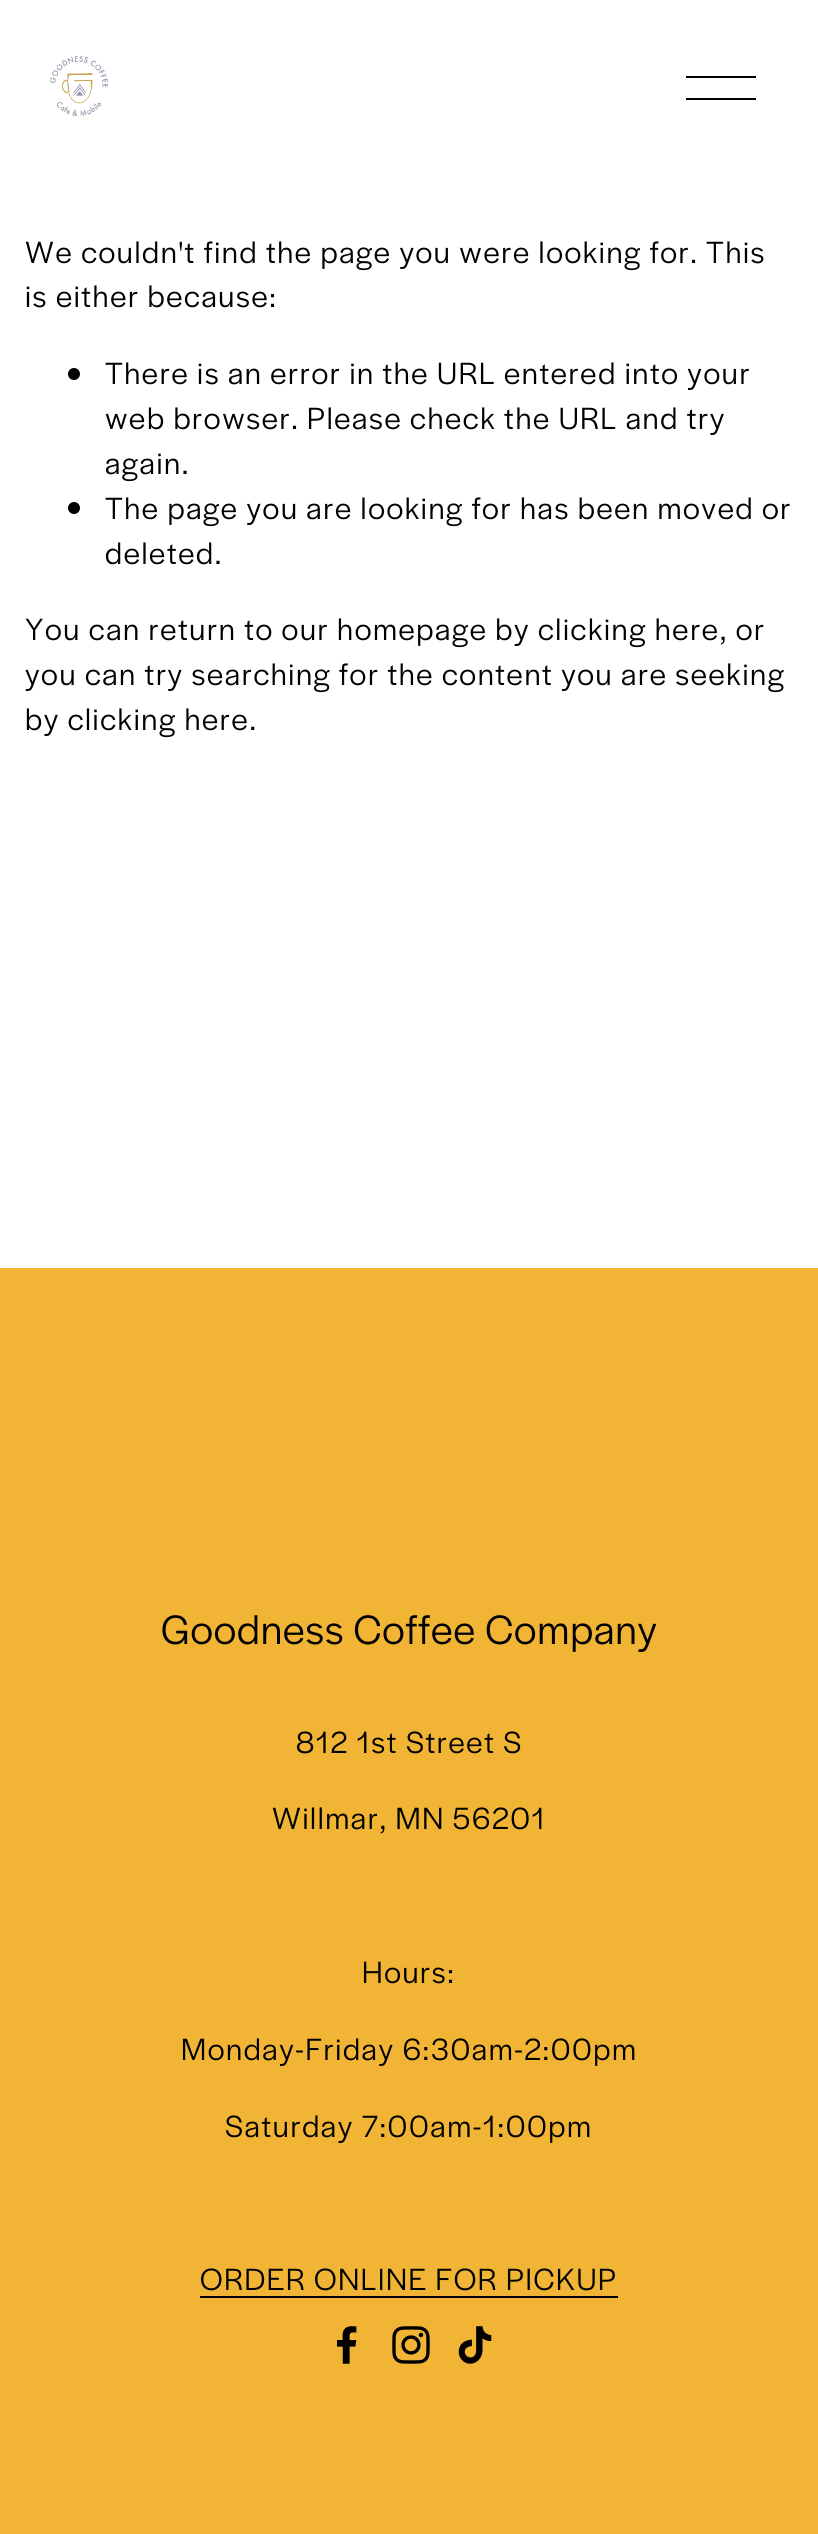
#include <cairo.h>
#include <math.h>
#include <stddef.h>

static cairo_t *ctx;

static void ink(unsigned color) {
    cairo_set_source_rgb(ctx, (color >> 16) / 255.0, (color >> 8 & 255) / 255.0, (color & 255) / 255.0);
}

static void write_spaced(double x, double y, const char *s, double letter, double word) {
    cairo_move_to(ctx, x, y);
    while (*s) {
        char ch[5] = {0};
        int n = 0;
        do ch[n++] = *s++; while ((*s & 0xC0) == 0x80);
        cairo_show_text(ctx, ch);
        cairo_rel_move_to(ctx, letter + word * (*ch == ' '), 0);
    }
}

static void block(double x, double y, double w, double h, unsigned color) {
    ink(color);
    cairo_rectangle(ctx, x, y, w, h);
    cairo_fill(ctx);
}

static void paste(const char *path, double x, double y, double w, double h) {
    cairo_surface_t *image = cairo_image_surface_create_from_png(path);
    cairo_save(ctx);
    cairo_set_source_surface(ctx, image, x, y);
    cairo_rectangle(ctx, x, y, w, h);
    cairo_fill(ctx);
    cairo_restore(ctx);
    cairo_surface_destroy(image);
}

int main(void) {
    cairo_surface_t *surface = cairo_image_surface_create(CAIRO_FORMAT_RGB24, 818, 2534);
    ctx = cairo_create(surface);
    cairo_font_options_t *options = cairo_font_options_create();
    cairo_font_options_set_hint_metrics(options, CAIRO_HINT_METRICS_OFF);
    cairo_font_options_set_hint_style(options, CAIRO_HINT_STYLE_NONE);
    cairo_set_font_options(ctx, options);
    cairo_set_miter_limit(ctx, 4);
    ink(0xffffff);
    cairo_paint(ctx);
    paste("pic1.png", 50, 56, 59, 61);
    block(686, 76, 70, 2, 0x000000);
    block(686, 98, 70, 2, 0x000000);
    cairo_select_font_face(ctx, "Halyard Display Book", CAIRO_FONT_SLANT_NORMAL, CAIRO_FONT_WEIGHT_NORMAL);
    cairo_set_font_size(ctx, 32);
    write_spaced(25, 263, "We couldn't find the page you were looking for. This", 1.6, 0);
    write_spaced(25, 307, "is either because:", 1.6, 0);
    cairo_new_path(ctx);
    cairo_arc(ctx, 74, 374, 6, 0, 2 * M_PI);
    cairo_fill(ctx);
    write_spaced(105, 384, "There is an error in the URL entered into your", 1.6, 0);
    write_spaced(105, 429, "web browser. Please check the URL and try", 1.6, 0);
    write_spaced(105, 474, "again.", 1.6, 0);
    cairo_new_path(ctx);
    cairo_arc(ctx, 74, 508, 6, 0, 2 * M_PI);
    cairo_fill(ctx);
    write_spaced(105, 519, "The page you are looking for has been moved or", 1.6, 0);
    write_spaced(105, 564, "deleted.", 1.6, 0);
    write_spaced(25, 640, "You can return to our homepage by clicking here, or", 1.6, 0);
    write_spaced(25, 685, "you can try searching for the content you are seeking", 1.6, 0);
    write_spaced(25, 730, "by clicking here.", 1.6, 0);
    block(0, 1268, 818, 1266, 0xf1b434);
    cairo_set_font_size(ctx, 42.75);
    ink(0x000000);
    write_spaced(161, 1644, "Goodness Coffee Company", 0.9, 0);
    cairo_set_font_size(ctx, 32);
    write_spaced(296, 1753, "812 1st Street S", 1.6, 0);
    write_spaced(272, 1829, "Willmar, MN 56201", 1.6, 0);
    write_spaced(362, 1983, "Hours:", 1.6, 0);
    write_spaced(181, 2060, "Monday-Friday 6:30am-2:00pm", 1.6, 0);
    write_spaced(225, 2137, "Saturday 7:00am-1:00pm", 1.6, 0);
    write_spaced(200, 2290, "ORDER ONLINE FOR PICKUP", 1.6, 0);
    block(200, 2296, 418, 2, 0x000000);
    paste("pic2.png", 337, 2326, 20, 38);
    paste("pic3.png", 392, 2326, 38, 38);
    paste("pic4.png", 458, 2326, 34, 38);
    cairo_surface_write_to_png(surface, "screenshot.png");
    cairo_font_options_destroy(options);
    cairo_destroy(ctx);
    cairo_surface_destroy(surface);
    return 0;
}
